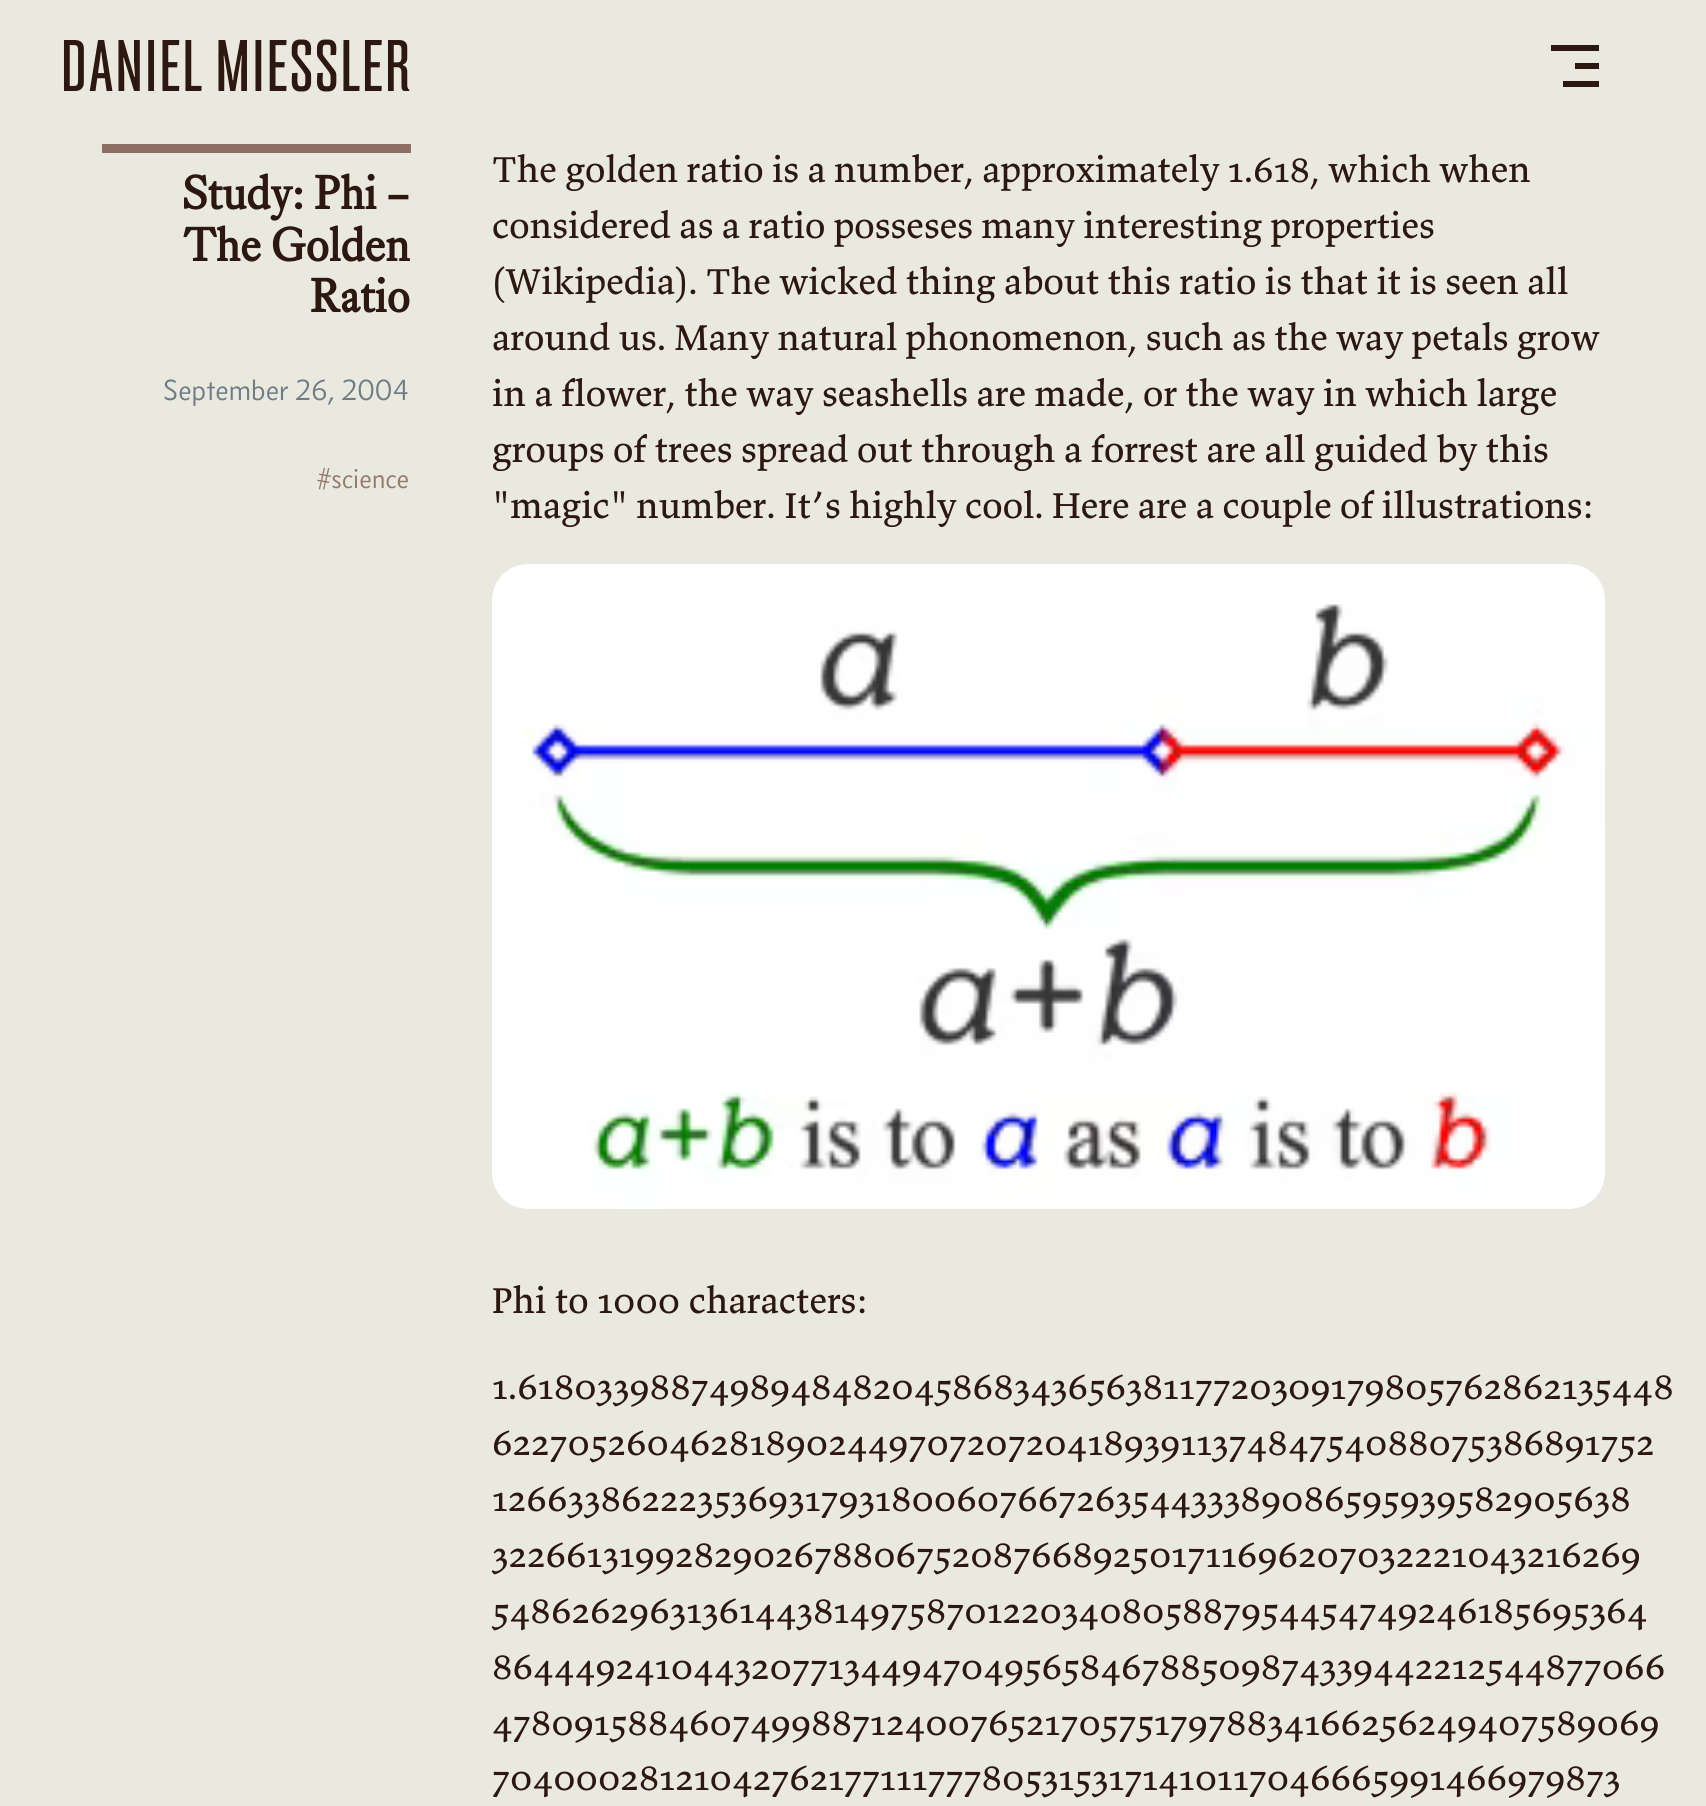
#include <cairo.h>
#include <math.h>
#include <stddef.h>

typedef struct { const char *family; double size; int italic, bold; unsigned color; } style_t;
static cairo_t *ctx;

static void ink(unsigned color) {
    cairo_set_source_rgb(ctx, (color >> 16) / 255.0, (color >> 8 & 255) / 255.0, (color & 255) / 255.0);
}

static void write(double x, double y, const char *s, const style_t *st) {
    cairo_select_font_face(ctx, st->family, st->italic ? CAIRO_FONT_SLANT_ITALIC : CAIRO_FONT_SLANT_NORMAL,
        st->bold ? CAIRO_FONT_WEIGHT_BOLD : CAIRO_FONT_WEIGHT_NORMAL);
    cairo_set_font_size(ctx, st->size);
    ink(st->color);
    cairo_move_to(ctx, x, y);
    cairo_show_text(ctx, s);
}

static void write_spaced(double x, double y, const char *s, double letter, double word) {
    cairo_move_to(ctx, x, y);
    while (*s) {
        char ch[5] = {0};
        int n = 0;
        do ch[n++] = *s++; while ((*s & 0xC0) == 0x80);
        cairo_show_text(ctx, ch);
        cairo_rel_move_to(ctx, letter + word * (*ch == ' '), 0);
    }
}

static void block(double x, double y, double w, double h, unsigned color) {
    ink(color);
    cairo_rectangle(ctx, x, y, w, h);
    cairo_fill(ctx);
}

static void paste(const char *path, double x, double y, double w, double h) {
    cairo_surface_t *image = cairo_image_surface_create_from_png(path);
    cairo_save(ctx);
    cairo_set_source_surface(ctx, image, x, y);
    cairo_rectangle(ctx, x, y, w, h);
    cairo_fill(ctx);
    cairo_restore(ctx);
    cairo_surface_destroy(image);
}

static const style_t s1 = {"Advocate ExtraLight", 75, 0, 0, 0x2c1810};
static const style_t s2 = {"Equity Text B", 46.5, 0, 1, 0x2c1810};
static const style_t s3 = {"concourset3 Light", 29.75, 0, 0, 0x707d86};
static const style_t s4 = {"concourset3 Light", 28, 0, 0, 0x937b6e};
static const style_t s5 = {"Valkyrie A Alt", 37.25, 0, 0, 0x2c1810};

int main(void) {
    cairo_surface_t *surface = cairo_image_surface_create(CAIRO_FORMAT_RGB24, 1706, 1806);
    ctx = cairo_create(surface);
    cairo_font_options_t *options = cairo_font_options_create();
    cairo_font_options_set_hint_metrics(options, CAIRO_HINT_METRICS_OFF);
    cairo_font_options_set_hint_style(options, CAIRO_HINT_STYLE_NONE);
    cairo_set_font_options(ctx, options);
    cairo_set_miter_limit(ctx, 4);
    ink(0xeae9df);
    cairo_paint(ctx);
    write(60, 91, "DANIEL MIESSLER", &s1);
    block(1551, 45, 48, 6, 0x2c1810);
    block(1575, 63, 24, 6, 0x2c1810);
    block(1563, 81, 36, 6, 0x2c1810);
    block(102, 144, 309, 9, 0x8d6e63);
    write(182, 209, "Study: Phi –", &s2);
    write(183, 261, "The Golden", &s2);
    write(310, 312, "Ratio", &s2);
    write(163, 400, "September 26, 2004", &s3);
    write(317, 488, "#science", &s4);
    cairo_select_font_face(ctx, "Valkyrie A Alt", CAIRO_FONT_SLANT_NORMAL, CAIRO_FONT_WEIGHT_NORMAL);
    cairo_set_font_size(ctx, 37.25);
    ink(0x2c1810);
    write_spaced(492, 182, "The golden ratio is a number, approximately 1.618, which when", 0, -0.25);
    cairo_select_font_face(ctx, "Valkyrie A", CAIRO_FONT_SLANT_NORMAL, CAIRO_FONT_WEIGHT_NORMAL);
    write_spaced(492, 238, "considered as a ratio posseses many interesting properties", 0, -0.25);
    write_spaced(492, 294, "(Wikipedia). The wicked thing about this ratio is that it is seen all", 0, -0.1);
    write_spaced(492, 350, "around us. Many natural phonomenon, such as the way petals grow", 0, -0.25);
    write_spaced(492, 406, "in a flower, the way seashells are made, or the way in which large", 0, -0.1);
    write_spaced(492, 462, "groups of trees spread out through a forrest are all guided by this", 0, -0.1);
    write_spaced(492, 518, "\"magic\" number. It’s highly cool. Here are a couple of illustrations:", 0, -0.25);
    paste("pic1.png", 492, 564, 1113, 645);
    write(492, 1313, "Phi to 1000 characters:", &s5);
    write(492, 1399, "1.618033988749894848204586834365638117720309179805762862135448", &s5);
    write(492, 1455, "622705260462818902449707207204189391137484754088075386891752", &s5);
    write(492, 1511, "126633862223536931793180060766726354433389086595939582905638", &s5);
    write(492, 1567, "322661319928290267880675208766892501711696207032221043216269", &s5);
    write(492, 1623, "548626296313614438149758701220340805887954454749246185695364", &s5);
    write(492, 1679, "864449241044320771344947049565846788509874339442212544877066", &s5);
    write(492, 1735, "478091588460749988712400765217057517978834166256249407589069", &s5);
    write(492, 1790, "704000281210427621771117778053153171410117046665991466979873", &s5);
    cairo_surface_write_to_png(surface, "screenshot.png");
    cairo_font_options_destroy(options);
    cairo_destroy(ctx);
    cairo_surface_destroy(surface);
    return 0;
}
